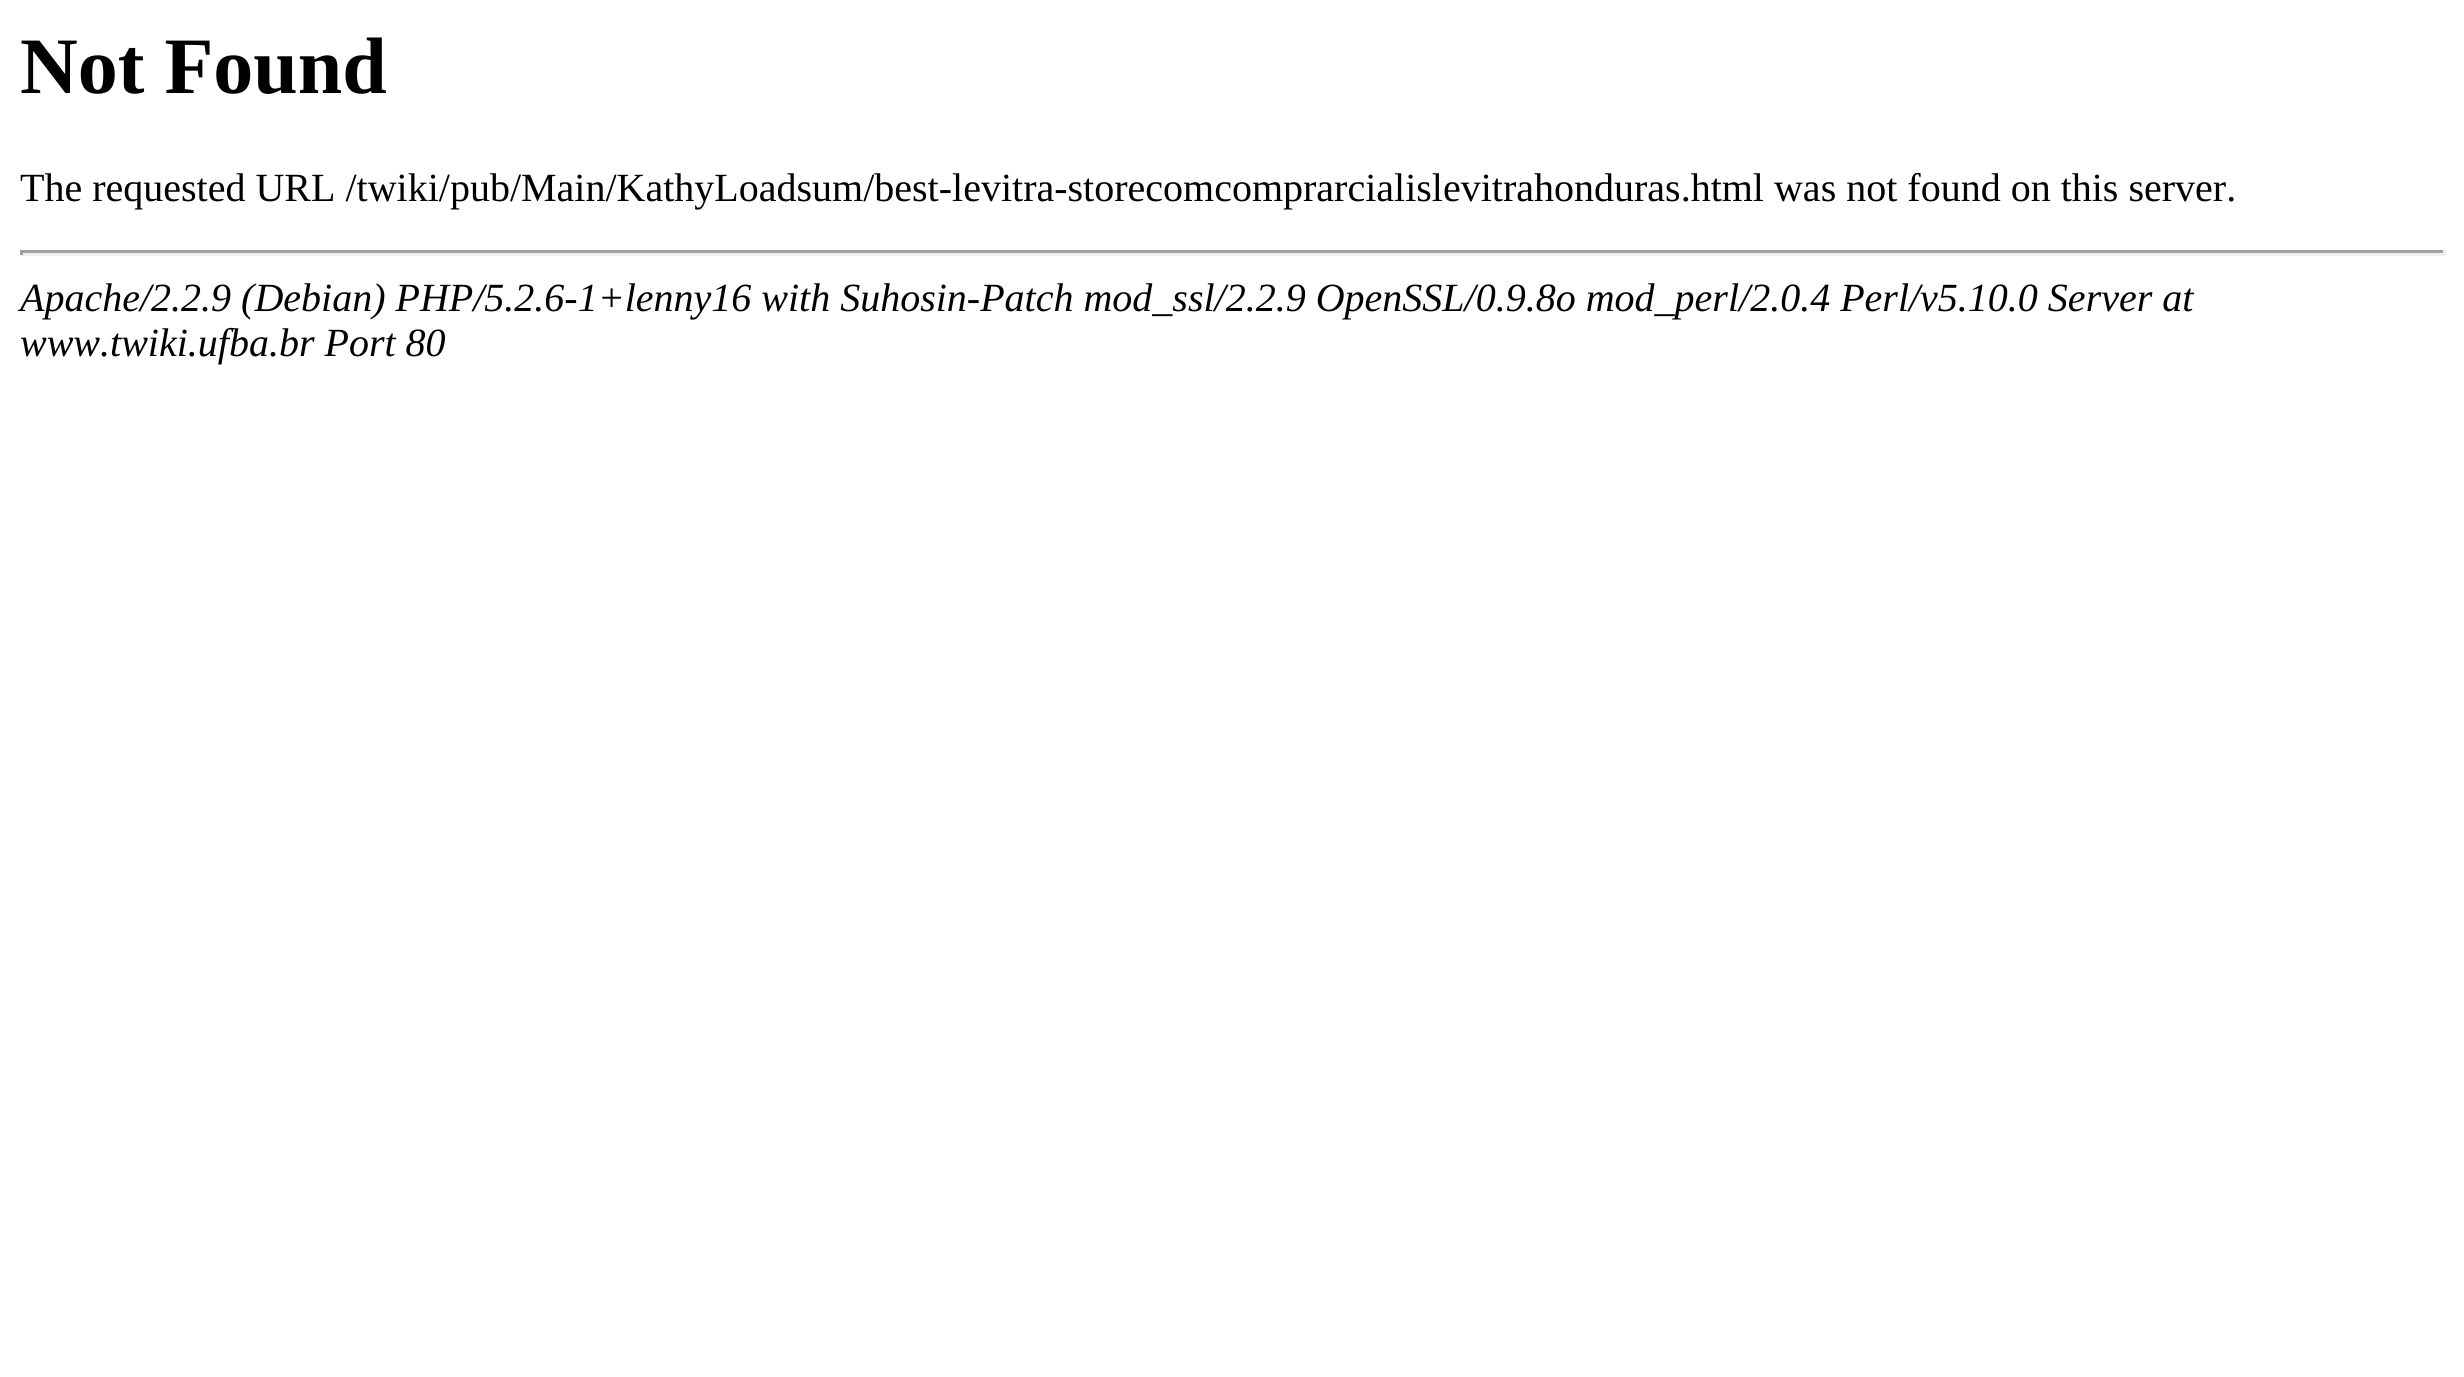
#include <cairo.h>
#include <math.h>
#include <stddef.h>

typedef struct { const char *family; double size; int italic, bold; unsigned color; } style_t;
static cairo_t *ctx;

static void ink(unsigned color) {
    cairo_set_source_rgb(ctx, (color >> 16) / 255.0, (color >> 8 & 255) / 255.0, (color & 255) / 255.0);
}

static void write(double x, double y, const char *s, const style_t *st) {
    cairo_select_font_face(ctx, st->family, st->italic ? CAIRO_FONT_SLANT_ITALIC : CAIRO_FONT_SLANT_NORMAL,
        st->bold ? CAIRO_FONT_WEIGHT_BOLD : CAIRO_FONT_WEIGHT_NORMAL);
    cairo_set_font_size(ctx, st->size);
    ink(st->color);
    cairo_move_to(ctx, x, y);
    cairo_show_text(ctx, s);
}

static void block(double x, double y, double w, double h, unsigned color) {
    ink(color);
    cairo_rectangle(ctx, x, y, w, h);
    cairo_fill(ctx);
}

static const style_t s1 = {"Liberation Serif", 80, 0, 1, 0x000000};
static const style_t s2 = {"Liberation Serif", 40, 0, 0, 0x000000};
static const style_t s3 = {"Liberation Serif", 40, 1, 0, 0x000000};

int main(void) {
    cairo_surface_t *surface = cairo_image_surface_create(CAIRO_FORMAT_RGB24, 2464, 1377);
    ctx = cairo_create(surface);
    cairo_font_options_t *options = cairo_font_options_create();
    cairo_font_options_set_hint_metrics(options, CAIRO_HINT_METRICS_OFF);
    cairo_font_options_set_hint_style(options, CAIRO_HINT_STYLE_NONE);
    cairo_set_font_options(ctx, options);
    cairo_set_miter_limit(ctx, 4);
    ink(0xffffff);
    cairo_paint(ctx);
    write(20, 93, "Not Found", &s1);
    write(20, 201, "The requested URL /twiki/pub/Main/KathyLoadsum/best-levitra-storecomcomprarcialislevitrahonduras.html was not found on this server.", &s2);
    block(20, 250, 2425, 3, 0x9f9f9f);
    block(2443, 250, 3, 5, 0xeeeeee);
    block(20, 253, 2425, 3, 0xeeeeee);
    block(20, 250, 3, 5, 0x9f9f9f);
    write(20, 311, "Apache/2.2.9 (Debian) PHP/5.2.6-1+lenny16 with Suhosin-Patch mod_ssl/2.2.9 OpenSSL/0.9.8o mod_perl/2.0.4 Perl/v5.10.0 Server at", &s3);
    write(20, 356, "www.twiki.ufba.br Port 80", &s3);
    cairo_surface_write_to_png(surface, "screenshot.png");
    cairo_font_options_destroy(options);
    cairo_destroy(ctx);
    cairo_surface_destroy(surface);
    return 0;
}
